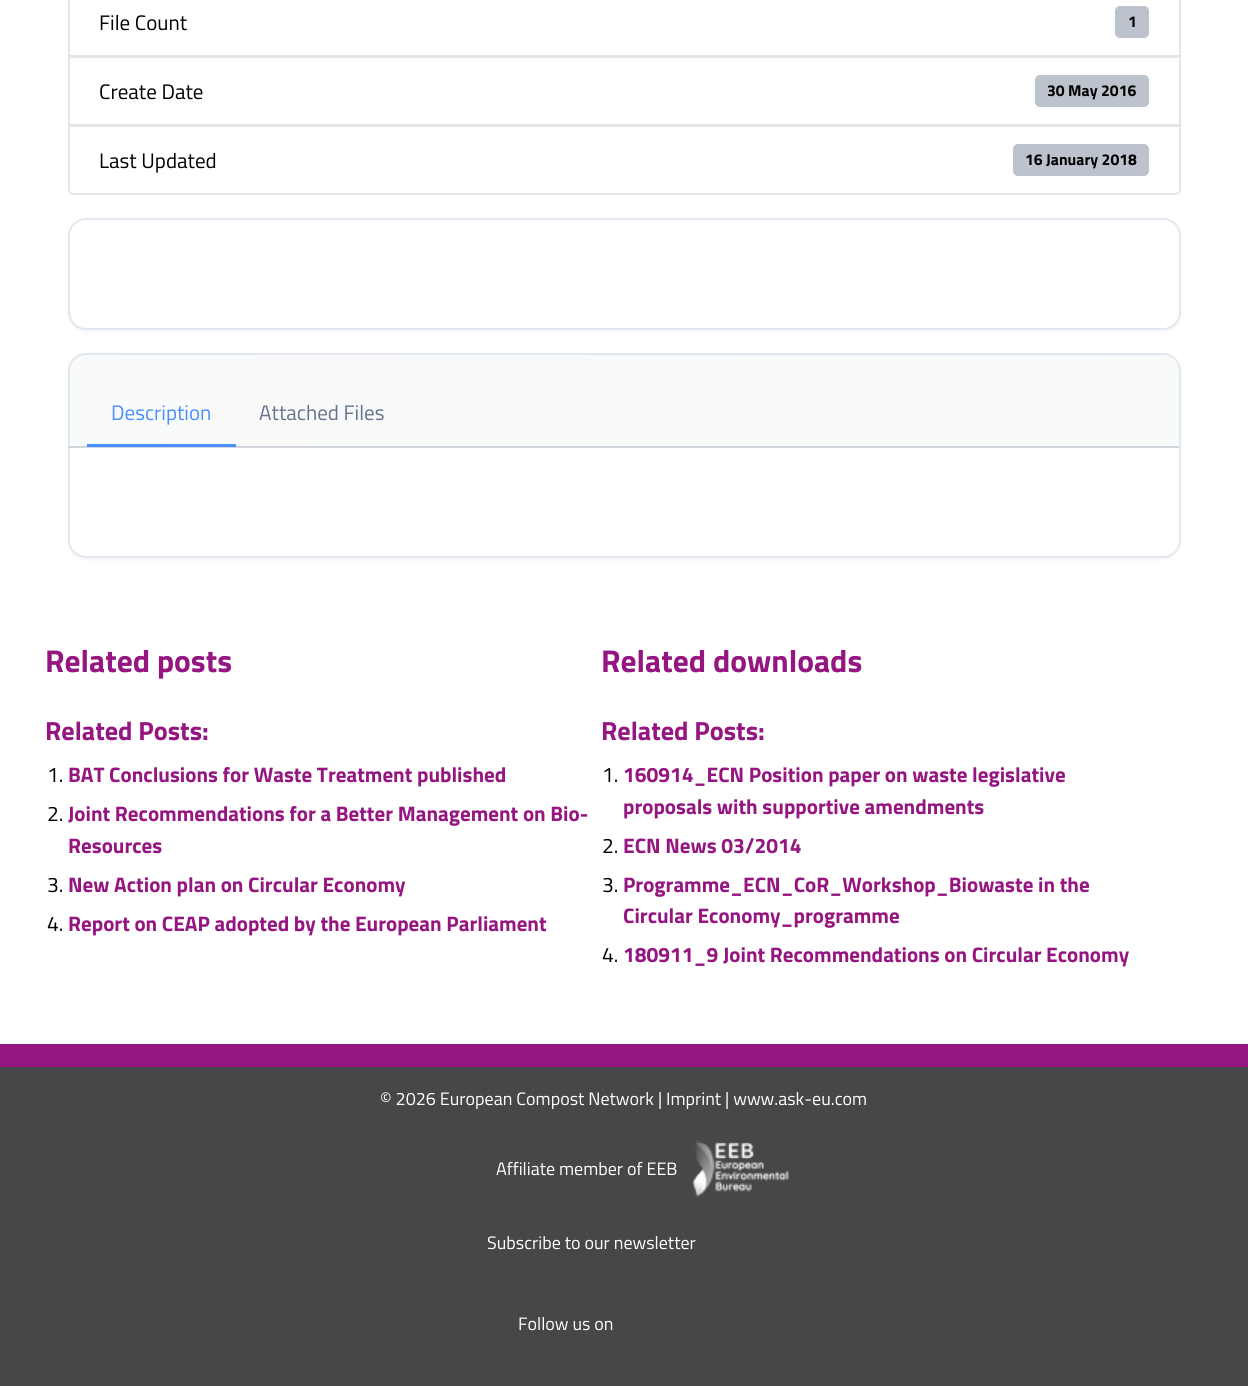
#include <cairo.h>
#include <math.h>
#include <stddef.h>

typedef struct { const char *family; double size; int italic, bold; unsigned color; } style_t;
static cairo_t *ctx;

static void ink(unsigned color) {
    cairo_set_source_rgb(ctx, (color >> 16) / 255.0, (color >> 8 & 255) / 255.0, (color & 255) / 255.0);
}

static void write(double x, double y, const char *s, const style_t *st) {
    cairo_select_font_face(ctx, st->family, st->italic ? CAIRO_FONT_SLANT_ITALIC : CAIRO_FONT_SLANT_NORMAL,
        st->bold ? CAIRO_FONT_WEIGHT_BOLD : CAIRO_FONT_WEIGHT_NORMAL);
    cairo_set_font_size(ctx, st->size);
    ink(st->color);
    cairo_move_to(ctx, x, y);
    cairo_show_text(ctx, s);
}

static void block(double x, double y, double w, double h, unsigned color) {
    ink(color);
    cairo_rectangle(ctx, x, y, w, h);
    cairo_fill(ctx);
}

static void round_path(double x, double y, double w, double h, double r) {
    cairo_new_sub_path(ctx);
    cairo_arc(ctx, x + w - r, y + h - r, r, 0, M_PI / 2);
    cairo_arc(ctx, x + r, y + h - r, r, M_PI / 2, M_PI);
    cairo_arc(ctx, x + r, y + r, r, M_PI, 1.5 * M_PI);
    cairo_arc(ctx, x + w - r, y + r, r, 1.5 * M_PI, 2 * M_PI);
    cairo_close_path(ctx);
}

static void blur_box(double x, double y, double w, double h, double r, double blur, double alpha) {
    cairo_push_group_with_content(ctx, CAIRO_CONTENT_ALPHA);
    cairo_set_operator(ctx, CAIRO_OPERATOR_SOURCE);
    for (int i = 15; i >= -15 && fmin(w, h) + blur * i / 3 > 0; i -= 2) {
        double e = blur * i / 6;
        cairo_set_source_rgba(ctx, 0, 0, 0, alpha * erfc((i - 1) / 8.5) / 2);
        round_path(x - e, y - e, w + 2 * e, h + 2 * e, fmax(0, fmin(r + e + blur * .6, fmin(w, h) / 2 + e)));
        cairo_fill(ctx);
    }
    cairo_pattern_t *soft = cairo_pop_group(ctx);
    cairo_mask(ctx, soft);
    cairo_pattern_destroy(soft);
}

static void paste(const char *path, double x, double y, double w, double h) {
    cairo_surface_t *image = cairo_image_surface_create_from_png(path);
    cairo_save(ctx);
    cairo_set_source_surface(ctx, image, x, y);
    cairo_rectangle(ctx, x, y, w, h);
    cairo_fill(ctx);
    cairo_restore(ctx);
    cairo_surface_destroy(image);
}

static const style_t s1 = {"Titillium Web", 21, 0, 0, 0x000000};
static const style_t s2 = {"Titillium Web", 15.75, 0, 1, 0x000000};
static const style_t s3 = {"Titillium Web", 21, 0, 0, 0x4a8eff};
static const style_t s4 = {"Titillium Web", 21, 0, 0, 0x64748b};
static const style_t s5 = {"Titillium Web", 31.5, 0, 1, 0x951681};
static const style_t s6 = {"Titillium Web", 26.25, 0, 1, 0x951681};
static const style_t s7 = {"Titillium Web", 21, 0, 1, 0x951681};
static const style_t s8 = {"Titillium Web", 18, 0, 0, 0xffffff};

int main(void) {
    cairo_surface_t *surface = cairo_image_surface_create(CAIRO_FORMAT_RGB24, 1248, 1386);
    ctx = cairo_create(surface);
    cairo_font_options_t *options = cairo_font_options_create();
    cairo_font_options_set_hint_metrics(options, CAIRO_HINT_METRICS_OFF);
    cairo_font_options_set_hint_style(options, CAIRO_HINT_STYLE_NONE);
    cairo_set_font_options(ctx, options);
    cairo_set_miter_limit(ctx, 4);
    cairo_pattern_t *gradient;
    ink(0x474749);
    cairo_paint(ctx);
    block(0, 0, 1248, 1044, 0xffffff);
    cairo_rectangle(ctx, 69, -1, 1111, 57);
    ink(0xe5e5e5);
    cairo_stroke(ctx);
    write(99, 30, "File Count", &s1);
    ink(0xbcc3cc);
    round_path(1115, 6, 34, 32, 5);
    cairo_fill(ctx);
    write(1128, 27, "1", &s2);
    cairo_rectangle(ctx, 69, 57, 1111, 68);
    ink(0xe5e5e5);
    cairo_stroke(ctx);
    write(99, 99, "Create Date", &s1);
    ink(0xbcc3cc);
    round_path(1035, 75, 114, 32, 5);
    cairo_fill(ctx);
    write(1047, 96, "30 May 2016", &s2);
    ink(0xffffff);
    cairo_new_path(ctx);
    cairo_move_to(ctx, 69, 126);
    cairo_line_to(ctx, 1180, 126);
    cairo_line_to(ctx, 1180, 189);
    cairo_curve_to(ctx, 1180, 192, 1178, 194, 1175, 194);
    cairo_line_to(ctx, 74, 194);
    cairo_curve_to(ctx, 71, 194, 69, 192, 69, 189);
    cairo_close_path(ctx);
    cairo_fill_preserve(ctx);
    ink(0xe5e5e5);
    cairo_stroke(ctx);
    write(99, 168, "Last Updated", &s1);
    ink(0xbcc3cc);
    round_path(1013, 144, 136, 32, 5);
    cairo_fill(ctx);
    write(1025, 165, "16 January 2018", &s2);
    ink(0x000000);
    blur_box(68, 219, 1113, 113, 18, 2, 0.04);
    ink(0xffffff);
    round_path(69, 219, 1111, 110, 17);
    cairo_fill_preserve(ctx);
    ink(0xe2e8f0);
    cairo_stroke(ctx);
    ink(0x000000);
    blur_box(68, 354, 1113, 206, 18, 2, 0.04);
    ink(0xffffff);
    round_path(69, 354, 1111, 203, 17);
    cairo_fill_preserve(ctx);
    ink(0xe2e8f0);
    cairo_stroke(ctx);
    cairo_set_source_rgba(ctx, 0.796, 0.816, 0.839, 0.13);
    cairo_new_path(ctx);
    cairo_move_to(ctx, 86, 354);
    cairo_line_to(ctx, 1162, 354);
    cairo_curve_to(ctx, 1171.5, 354, 1179, 361.5, 1179, 371);
    cairo_line_to(ctx, 1179, 447);
    cairo_line_to(ctx, 69, 447);
    cairo_line_to(ctx, 69, 371);
    cairo_curve_to(ctx, 69, 361.5, 76.5, 354, 86, 354);
    cairo_close_path(ctx);
    cairo_fill(ctx);
    gradient = cairo_pattern_create_linear(324, 99, 924, 700);
    cairo_pattern_add_color_stop_rgba(gradient, 0, 1, 1, 1, 0.1);
    cairo_pattern_add_color_stop_rgba(gradient, 1, 1, 1, 1, 0);
    cairo_set_source(ctx, gradient);
    cairo_pattern_destroy(gradient);
    cairo_new_path(ctx);
    cairo_move_to(ctx, 86, 354);
    cairo_line_to(ctx, 1162, 354);
    cairo_curve_to(ctx, 1171.5, 354, 1179, 361.5, 1179, 371);
    cairo_line_to(ctx, 1179, 446);
    cairo_line_to(ctx, 69, 446);
    cairo_line_to(ctx, 69, 371);
    cairo_curve_to(ctx, 69, 361.5, 76.5, 354, 86, 354);
    cairo_close_path(ctx);
    cairo_fill(ctx);
    gradient = cairo_pattern_create_linear(324, 191, 924, 792);
    cairo_pattern_add_color_stop_rgba(gradient, 0, 1, 1, 1, 0.1);
    cairo_pattern_add_color_stop_rgba(gradient, 1, 1, 1, 1, 0);
    cairo_set_source(ctx, gradient);
    cairo_pattern_destroy(gradient);
    cairo_rectangle(ctx, 69, 446, 1, 1);
    cairo_fill(ctx);
    cairo_set_source_rgba(ctx, 0.722, 0.749, 0.792, 0.63);
    cairo_rectangle(ctx, 69, 446, 1110, 2);
    cairo_fill(ctx);
    write(111, 420, "Description", &s3);
    block(87, 444, 149, 3, 0x4a8eff);
    write(259, 420, "Attached Files", &s4);
    write(45, 672, "Related posts", &s5);
    write(45, 740, "Related Posts:", &s6);
    write(47, 782, "1.", &s1);
    write(68, 782, "BAT Conclusions for Waste Treatment published", &s7);
    write(47, 821, "2.", &s1);
    write(68, 821, "Joint Recommendations for a Better Management on Bio-", &s7);
    write(68, 853, "Resources", &s7);
    write(47, 892, "3.", &s1);
    write(68, 892, "New Action plan on Circular Economy", &s7);
    write(47, 931, "4.", &s1);
    write(68, 931, "Report on CEAP adopted by the European Parliament", &s7);
    write(601, 672, "Related downloads", &s5);
    write(601, 740, "Related Posts:", &s6);
    write(602, 782, "1.", &s1);
    write(623, 782, "160914_ECN Position paper on waste legislative", &s7);
    write(623, 814, "proposals with supportive amendments", &s7);
    write(602, 853, "2.", &s1);
    write(623, 853, "ECN News 03/2014", &s7);
    write(602, 892, "3.", &s1);
    write(623, 892, "Programme_ECN_CoR_Workshop_Biowaste in the", &s7);
    write(623, 923, "Circular Economy_programme", &s7);
    write(602, 962, "4.", &s1);
    write(623, 962, "180911_9 Joint Recommendations on Circular Economy", &s7);
    block(0, 1044, 1248, 23, 0x951681);
    write(380, 1105, "© 2026 European Compost Network | Imprint | www.ask-eu.com", &s8);
    paste("pic1.png", 693, 1140, 96, 57);
    write(496, 1175, "Affiliate member of EEB", &s8);
    write(487, 1249, "Subscribe to our newsletter", &s8);
    write(518, 1330, "Follow us on", &s8);
    cairo_surface_write_to_png(surface, "screenshot.png");
    cairo_font_options_destroy(options);
    cairo_destroy(ctx);
    cairo_surface_destroy(surface);
    return 0;
}
